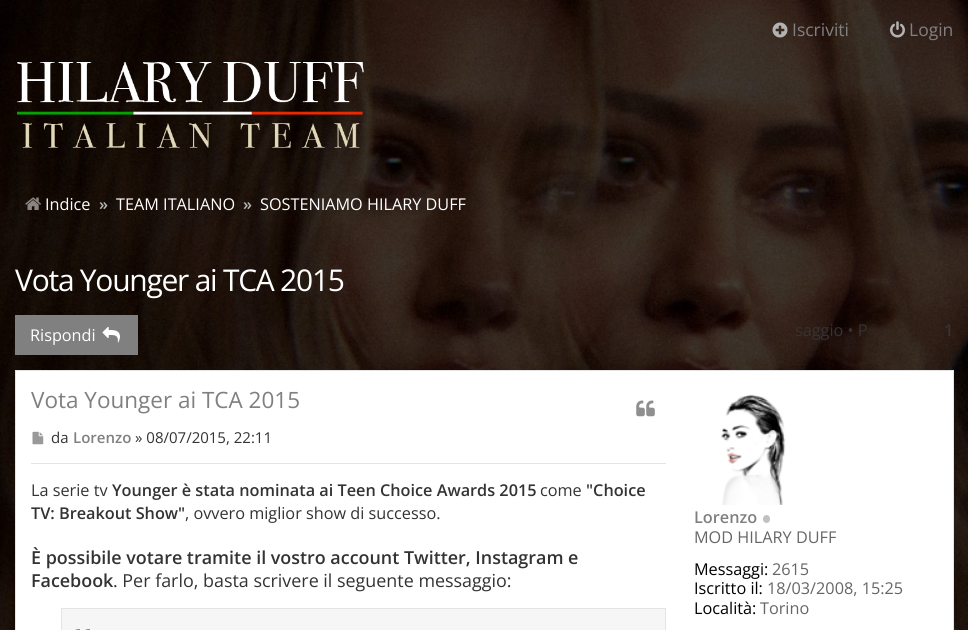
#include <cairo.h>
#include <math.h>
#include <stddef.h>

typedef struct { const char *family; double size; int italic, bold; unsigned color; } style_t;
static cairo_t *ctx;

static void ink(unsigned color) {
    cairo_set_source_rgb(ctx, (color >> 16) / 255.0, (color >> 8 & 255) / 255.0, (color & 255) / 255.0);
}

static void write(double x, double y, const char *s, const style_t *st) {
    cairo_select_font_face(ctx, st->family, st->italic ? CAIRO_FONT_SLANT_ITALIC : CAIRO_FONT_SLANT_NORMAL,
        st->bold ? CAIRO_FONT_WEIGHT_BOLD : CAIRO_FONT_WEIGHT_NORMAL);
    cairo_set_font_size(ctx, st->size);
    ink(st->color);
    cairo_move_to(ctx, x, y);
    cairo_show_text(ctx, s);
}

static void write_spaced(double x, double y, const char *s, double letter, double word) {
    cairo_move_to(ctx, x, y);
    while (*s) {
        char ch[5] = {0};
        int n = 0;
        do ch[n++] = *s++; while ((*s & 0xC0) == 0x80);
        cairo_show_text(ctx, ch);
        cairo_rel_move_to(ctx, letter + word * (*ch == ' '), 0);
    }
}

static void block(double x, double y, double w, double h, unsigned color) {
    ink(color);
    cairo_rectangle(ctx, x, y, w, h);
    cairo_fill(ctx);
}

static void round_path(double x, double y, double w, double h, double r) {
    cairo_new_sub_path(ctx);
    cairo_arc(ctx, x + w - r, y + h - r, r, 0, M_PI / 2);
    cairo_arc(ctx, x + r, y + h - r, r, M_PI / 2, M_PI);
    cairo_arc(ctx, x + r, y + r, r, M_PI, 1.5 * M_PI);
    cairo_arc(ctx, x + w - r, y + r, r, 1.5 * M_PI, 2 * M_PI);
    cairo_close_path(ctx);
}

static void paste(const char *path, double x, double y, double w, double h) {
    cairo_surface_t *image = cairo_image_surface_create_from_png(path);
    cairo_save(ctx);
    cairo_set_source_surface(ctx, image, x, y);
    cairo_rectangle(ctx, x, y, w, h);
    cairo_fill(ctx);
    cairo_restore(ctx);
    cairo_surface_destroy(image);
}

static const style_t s1 = {"Open Sans", 17.5, 0, 0, 0x808080};
static const style_t s2 = {"Open Sans", 16.25, 0, 0, 0xffffff};
static const style_t s3 = {"Open Sans SemiBold", 16.25, 0, 0, 0xb4b4b4};
static const style_t s4 = {"Open Sans", 16.25, 0, 0, 0x333333};
static const style_t s5 = {"Open Sans SemiBold", 16.25, 0, 0, 0x333333};
static const style_t s6 = {"Open Sans", 22.5, 0, 0, 0x808080};
static const style_t s7 = {"Open Sans", 15, 0, 0, 0x333333};
static const style_t s8 = {"Open Sans SemiBold", 15, 0, 0, 0x808080};
static const style_t s9 = {"Open Sans SemiBold", 17.9, 0, 0, 0x333333};
static const style_t s10 = {"Open Sans", 17.9, 0, 0, 0x333333};
static const style_t s11 = {"Open Sans SemiBold", 16.25, 0, 0, 0x808080};
static const style_t s12 = {"Open Sans", 16.25, 0, 0, 0x666666};
static const style_t s13 = {"Open Sans", 16.25, 0, 0, 0x000000};

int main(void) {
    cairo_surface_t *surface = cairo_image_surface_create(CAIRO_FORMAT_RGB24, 968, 630);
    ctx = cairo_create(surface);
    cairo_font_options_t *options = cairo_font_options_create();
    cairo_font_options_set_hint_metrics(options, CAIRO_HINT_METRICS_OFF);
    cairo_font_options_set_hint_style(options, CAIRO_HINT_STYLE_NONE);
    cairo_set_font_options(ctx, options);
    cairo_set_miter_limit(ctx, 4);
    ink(0xffffff);
    cairo_paint(ctx);
    paste("pic1.png", 0, 0, 968, 630);
    paste("pic2.png", 772, 22, 16, 16);
    write(792, 36, "Iscriviti", &s1);
    paste("pic3.png", 890, 21, 15, 17);
    write(909, 36, "Login", &s1);
    paste("pic4.png", 17, 62, 347, 86);
    paste("pic5.png", 25, 197, 16, 13);
    write(45, 210, "Indice", &s2);
    write(99, 210, "»", &s3);
    write(116, 210, "TEAM ITALIANO", &s2);
    write(243, 210, "»", &s3);
    write(260, 210, "SOSTENIAMO HILARY DUFF", &s2);
    cairo_set_font_size(ctx, 30);
    write_spaced(15, 291, "Vota Younger ai TCA 2015", -1.25, 0);
    block(15, 315, 123, 40, 0x808080);
    write(30, 341, "Rispondi", &s2);
    paste("pic6.png", 102, 327, 18, 16);
    write(795, 336, "saggio • P", &s4);
    write(944, 336, "1", &s5);
    ink(0xffffff);
    cairo_rectangle(ctx, 15.5, 370.5, 938, 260);
    cairo_fill_preserve(ctx);
    ink(0xe4e4e4);
    cairo_set_line_width(ctx, 1);
    cairo_stroke(ctx);
    write(31, 408, "Vota Younger ai TCA 2015", &s6);
    paste("pic7.png", 636, 400, 19, 17);
    paste("pic8.png", 32, 431, 12, 14);
    write(51, 443, "da", &s7);
    write(73, 443, "Lorenzo", &s8);
    write(135, 443, "» 08/07/2015, 22:11", &s7);
    block(31, 463, 635, 1, 0xe4e4e4);
    write(31, 496, "La serie tv", &s4);
    write(112, 496, "Younger è stata nominata ai Teen Choice Awards 2015", &s5);
    write(540, 496, "come", &s4);
    write(586, 496, "\"Choice", &s5);
    write(31, 519, "TV: Breakout Show\"", &s5);
    write(185, 519, ", ovvero miglior show di successo.", &s4);
    write(31, 564, "È possibile votare tramite il vostro account Twitter, Instagram e", &s9);
    write(31, 587, "Facebook", &s9);
    write(113, 587, ". Per farlo, basta scrivere il seguente messaggio:", &s10);
    block(62, 609, 603, 21, 0xf6f6f6);
    paste("pic9.png", 75, 629, 15, 1);
    cairo_rectangle(ctx, 61.5, 608.5, 604, 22);
    ink(0xe4e4e4);
    cairo_stroke(ctx);
    paste("pic10.png", 721, 394, 65, 111);
    write(694, 523, "Lorenzo", &s11);
    ink(0xc1c1c1);
    round_path(763, 515, 7, 8, 3.5);
    cairo_fill(ctx);
    write(694, 543, "MOD HILARY DUFF", &s12);
    write(694, 575, "Messaggi:", &s13);
    write(772, 575, "2615", &s12);
    write(694, 594, "Iscritto il:", &s13);
    write(767, 594, "18/03/2008, 15:25", &s12);
    write(694, 614, "Località:", &s13);
    write(760, 614, "Torino", &s12);
    cairo_surface_write_to_png(surface, "screenshot.png");
    cairo_font_options_destroy(options);
    cairo_destroy(ctx);
    cairo_surface_destroy(surface);
    return 0;
}
